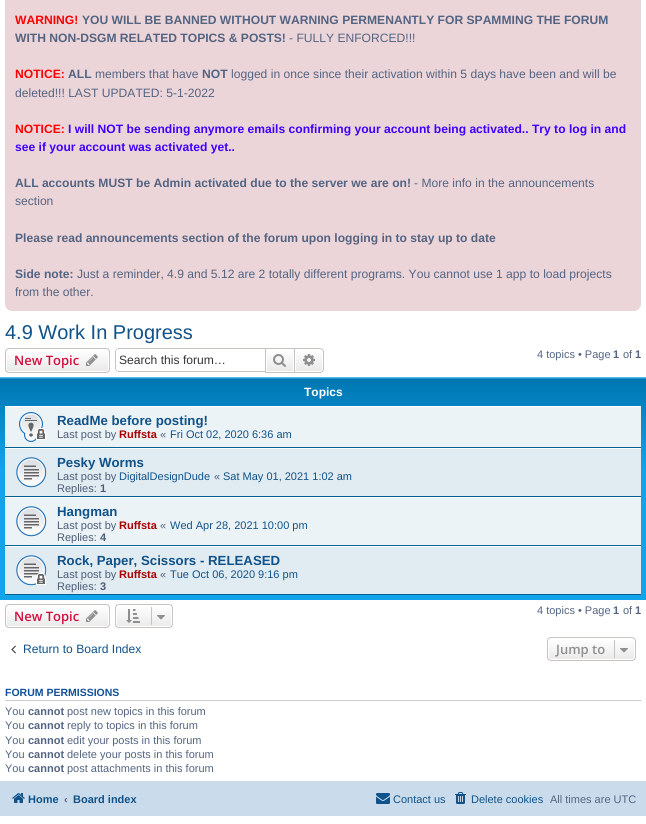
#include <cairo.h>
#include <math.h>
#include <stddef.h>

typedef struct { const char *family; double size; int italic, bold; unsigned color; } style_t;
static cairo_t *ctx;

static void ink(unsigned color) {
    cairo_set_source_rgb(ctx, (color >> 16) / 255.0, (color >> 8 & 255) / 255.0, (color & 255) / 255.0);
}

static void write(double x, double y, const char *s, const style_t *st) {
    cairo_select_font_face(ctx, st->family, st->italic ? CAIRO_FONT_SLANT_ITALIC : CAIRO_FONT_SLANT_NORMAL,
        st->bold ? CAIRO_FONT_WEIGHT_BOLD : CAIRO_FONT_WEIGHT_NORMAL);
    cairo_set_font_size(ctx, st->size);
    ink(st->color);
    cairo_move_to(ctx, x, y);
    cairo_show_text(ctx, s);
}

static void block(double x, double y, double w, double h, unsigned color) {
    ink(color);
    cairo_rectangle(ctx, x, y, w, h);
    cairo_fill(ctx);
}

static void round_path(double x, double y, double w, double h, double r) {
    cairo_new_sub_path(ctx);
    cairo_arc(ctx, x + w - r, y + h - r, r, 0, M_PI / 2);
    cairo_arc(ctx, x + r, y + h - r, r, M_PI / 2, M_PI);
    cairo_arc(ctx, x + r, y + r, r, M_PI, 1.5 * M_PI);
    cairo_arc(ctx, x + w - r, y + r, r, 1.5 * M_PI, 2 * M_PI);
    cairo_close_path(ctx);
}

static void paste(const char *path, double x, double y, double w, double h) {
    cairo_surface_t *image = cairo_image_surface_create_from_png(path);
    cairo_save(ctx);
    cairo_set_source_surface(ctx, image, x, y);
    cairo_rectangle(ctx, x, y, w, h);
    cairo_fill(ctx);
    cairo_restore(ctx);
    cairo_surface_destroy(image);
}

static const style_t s1 = {"Liberation Sans", 12.1, 0, 1, 0xff0000};
static const style_t s2 = {"Liberation Sans", 12.1, 0, 1, 0x536482};
static const style_t s3 = {"Liberation Sans", 12.1, 0, 0, 0x536482};
static const style_t s4 = {"Liberation Sans", 12.1, 0, 1, 0x4000ff};
static const style_t s5 = {"Liberation Sans", 20, 0, 0, 0x105289};
static const style_t s6 = {"Open Sans SemiBold", 13, 0, 0, 0xd31141};
static const style_t s7 = {"Liberation Sans", 12.1, 0, 0, 0x333333};
static const style_t s8 = {"Liberation Sans", 11, 0, 0, 0x536482};
static const style_t s9 = {"Liberation Sans", 11, 0, 1, 0x536482};
static const style_t s10 = {"Liberation Sans", 12, 0, 1, 0xffffff};
static const style_t s11 = {"Liberation Sans", 13.25, 0, 1, 0x105289};
static const style_t s12 = {"Liberation Sans", 11, 0, 0, 0x4c5d77};
static const style_t s13 = {"Liberation Sans", 11, 0, 1, 0xaa0000};
static const style_t s14 = {"Liberation Sans", 11, 0, 0, 0x105289};
static const style_t s15 = {"Liberation Sans", 11, 0, 1, 0x4c5d77};
static const style_t s16 = {"Liberation Sans", 12.1, 0, 0, 0x105289};
static const style_t s17 = {"Open Sans SemiBold", 13, 0, 0, 0x8f8f8f};
static const style_t s18 = {"Liberation Sans", 10.5, 0, 1, 0x115098};
static const style_t s19 = {"Liberation Sans", 11, 0, 1, 0x105289};

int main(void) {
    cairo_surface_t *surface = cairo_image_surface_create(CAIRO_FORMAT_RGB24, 646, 824);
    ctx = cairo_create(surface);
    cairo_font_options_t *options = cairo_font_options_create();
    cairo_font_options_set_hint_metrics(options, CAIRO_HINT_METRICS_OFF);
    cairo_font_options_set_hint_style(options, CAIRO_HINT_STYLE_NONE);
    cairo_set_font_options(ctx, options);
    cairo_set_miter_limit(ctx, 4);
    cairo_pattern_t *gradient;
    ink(0xffffff);
    cairo_paint(ctx);
    ink(0xecd5d8);
    round_path(5, -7, 636, 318, 7);
    cairo_fill(ctx);
    write(15, 24, "WARNING!", &s1);
    write(82, 24, "YOU WILL BE BANNED WITHOUT WARNING PERMENANTLY FOR SPAMMING THE FORUM", &s2);
    write(15, 42, "WITH NON-DSGM RELATED TOPICS & POSTS!", &s2);
    write(289, 42, "- FULLY ENFORCED!!!", &s3);
    write(15, 78, "NOTICE:", &s1);
    write(68, 78, "ALL", &s2);
    write(95, 78, "members that have", &s3);
    write(202, 78, "NOT", &s2);
    write(231, 78, "logged in once since their activation within 5 days have been and will be", &s3);
    write(15, 97, "deleted!!! LAST UPDATED: 5-1-2022", &s3);
    write(15, 133, "NOTICE:", &s1);
    write(68, 133, "I will NOT be sending anymore emails confirming your account being activated.. Try to log in and", &s4);
    write(15, 151, "see if your account was activated yet..", &s4);
    write(15, 187, "ALL accounts MUST be Admin activated due to the server we are on!", &s2);
    write(414, 187, "- More info in the announcements", &s3);
    write(15, 205, "section", &s3);
    write(15, 242, "Please read announcements section of the forum upon logging in to stay up to date", &s2);
    write(15, 278, "Side note:", &s2);
    write(77, 278, "Just a reminder, 4.9 and 5.12 are 2 totally different programs. You cannot use 1 app to load projects", &s3);
    write(15, 296, "from the other.", &s3);
    write(5, 339, "4.9 Work In Progress", &s5);
    cairo_save(ctx);
    round_path(5, 348, 105, 25, 4);
    cairo_clip(ctx);
    gradient = cairo_pattern_create_linear(58, 349, 58, 372);
    cairo_pattern_add_color_stop_rgba(gradient, 0, 1, 1, 1, 1);
    cairo_pattern_add_color_stop_rgba(gradient, 1, 0.914, 0.914, 0.914, 1);
    cairo_set_source(ctx, gradient);
    cairo_pattern_destroy(gradient);
    cairo_rectangle(ctx, 5, 349, 105, 23);
    cairo_fill(ctx);
    cairo_restore(ctx);
    round_path(6.5, 349.5, 102, 22, 2.5);
    ink(0xffffff);
    cairo_set_line_width(ctx, 1);
    cairo_stroke(ctx);
    round_path(5.5, 348.5, 104, 24, 3.5);
    ink(0xc7c3bf);
    cairo_stroke(ctx);
    write(14, 365, "New Topic", &s6);
    paste("pic1.png", 86, 354, 12, 12);
    ink(0xc7c3bf);
    cairo_set_fill_rule(ctx, CAIRO_FILL_RULE_EVEN_ODD);
    cairo_new_path(ctx);
    cairo_move_to(ctx, 119, 348);
    cairo_line_to(ctx, 265, 348);
    cairo_line_to(ctx, 265, 372);
    cairo_line_to(ctx, 119, 372);
    cairo_curve_to(ctx, 117, 372, 115, 370, 115, 368);
    cairo_line_to(ctx, 115, 352);
    cairo_curve_to(ctx, 115, 350, 117, 348, 119, 348);
    cairo_close_path(ctx);
    cairo_move_to(ctx, 119, 349);
    cairo_line_to(ctx, 265, 349);
    cairo_line_to(ctx, 265, 371);
    cairo_line_to(ctx, 119, 371);
    cairo_curve_to(ctx, 117, 371, 116, 370, 116, 368);
    cairo_line_to(ctx, 116, 352);
    cairo_curve_to(ctx, 116, 350, 117, 349, 119, 349);
    cairo_close_path(ctx);
    cairo_fill(ctx);
    write(119, 364, "Search this forum…", &s7);
    gradient = cairo_pattern_create_linear(280, 349, 280, 372);
    cairo_pattern_add_color_stop_rgba(gradient, 0, 1, 1, 1, 1);
    cairo_pattern_add_color_stop_rgba(gradient, 1, 0.914, 0.914, 0.914, 1);
    cairo_set_source(ctx, gradient);
    cairo_pattern_destroy(gradient);
    cairo_rectangle(ctx, 267, 352, 26, 19);
    cairo_fill(ctx);
    cairo_rectangle(ctx, 265.5, 348.5, 29, 24);
    ink(0xc7c3bf);
    cairo_stroke(ctx);
    paste("pic2.png", 273, 354, 13, 13);
    gradient = cairo_pattern_create_linear(309, 349, 309, 372);
    cairo_pattern_add_color_stop_rgba(gradient, 0, 1, 1, 1, 1);
    cairo_pattern_add_color_stop_rgba(gradient, 1, 0.914, 0.914, 0.914, 1);
    cairo_set_source(ctx, gradient);
    cairo_pattern_destroy(gradient);
    cairo_new_path(ctx);
    cairo_move_to(ctx, 295.5, 349.5);
    cairo_line_to(ctx, 320, 349.5);
    cairo_curve_to(ctx, 321.5, 349.5, 322.5, 350.5, 322.5, 352);
    cairo_line_to(ctx, 322.5, 369);
    cairo_curve_to(ctx, 322.5, 370.5, 321.5, 371.5, 320, 371.5);
    cairo_line_to(ctx, 295.5, 371.5);
    cairo_close_path(ctx);
    cairo_fill_preserve(ctx);
    ink(0xffffff);
    cairo_stroke(ctx);
    ink(0xc7c3bf);
    cairo_new_path(ctx);
    cairo_move_to(ctx, 295, 348);
    cairo_line_to(ctx, 320, 348);
    cairo_curve_to(ctx, 322, 348, 324, 350, 324, 352);
    cairo_line_to(ctx, 324, 369);
    cairo_curve_to(ctx, 324, 371, 322, 373, 320, 373);
    cairo_line_to(ctx, 295, 373);
    cairo_close_path(ctx);
    cairo_move_to(ctx, 295, 349);
    cairo_line_to(ctx, 320, 349);
    cairo_curve_to(ctx, 321.5, 349, 323, 350.5, 323, 352);
    cairo_line_to(ctx, 323, 369);
    cairo_curve_to(ctx, 323, 370.5, 321.5, 372, 320, 372);
    cairo_line_to(ctx, 295, 372);
    cairo_close_path(ctx);
    cairo_fill(ctx);
    paste("pic3.png", 303, 354, 12, 12);
    write(537, 358, "4 topics • Page", &s8);
    write(613, 358, "1", &s9);
    write(623, 358, "of", &s8);
    write(635, 358, "1", &s9);
    gradient = cairo_pattern_create_linear(323, 377, 323, 600);
    cairo_pattern_add_color_stop_rgba(gradient, 0, 0.416, 0.808, 1, 1);
    cairo_pattern_add_color_stop_rgba(gradient, 0.01, 0, 0.463, 0.694, 1);
    cairo_pattern_add_color_stop_rgba(gradient, 0.41, 0.071, 0.639, 0.922, 1);
    cairo_pattern_add_color_stop_rgba(gradient, 1, 0.071, 0.639, 0.922, 1);
    cairo_set_source(ctx, gradient);
    cairo_pattern_destroy(gradient);
    cairo_rectangle(ctx, 0, 377, 646, 223);
    cairo_fill(ctx);
    write(304, 396, "Topics", &s10);
    block(5, 407, 636, 40, 0xecf3f7);
    block(5, 406, 636, 1, 0xffffff);
    block(5, 447, 636, 1, 0x00608f);
    paste("pic4.png", 19, 412, 27, 30);
    write(57, 425, "ReadMe before posting!", &s11);
    write(57, 438, "Last post by", &s12);
    write(119, 438, "Ruffsta", &s13);
    write(160, 438, "«", &s12);
    write(170, 438, "Fri Oct 02, 2020 6:36 am", &s14);
    block(5, 449, 636, 47, 0xe1ebf2);
    block(5, 448, 636, 1, 0xffffff);
    block(5, 496, 636, 1, 0x00608f);
    paste("pic5.png", 16, 457, 31, 31);
    write(57, 467, "Pesky Worms", &s11);
    write(57, 480, "Last post by", &s12);
    write(119, 480, "DigitalDesignDude", &s14);
    write(214, 480, "«", &s12);
    write(223, 480, "Sat May 01, 2021 1:02 am", &s14);
    write(57, 492, "Replies:", &s12);
    write(100, 492, "1", &s15);
    block(5, 498, 636, 47, 0xecf3f7);
    block(5, 497, 636, 1, 0xffffff);
    block(5, 545, 636, 1, 0x00608f);
    paste("pic6.png", 16, 506, 31, 31);
    write(57, 516, "Hangman", &s11);
    write(57, 529, "Last post by", &s12);
    write(119, 529, "Ruffsta", &s13);
    write(160, 529, "«", &s12);
    write(170, 529, "Wed Apr 28, 2021 10:00 pm", &s14);
    write(57, 541, "Replies:", &s12);
    write(100, 541, "4", &s15);
    block(5, 547, 636, 47, 0xe1ebf2);
    block(5, 546, 636, 1, 0xffffff);
    block(5, 594, 636, 1, 0x00608f);
    paste("pic7.png", 16, 555, 31, 31);
    write(57, 565, "Rock, Paper, Scissors - RELEASED", &s11);
    write(57, 578, "Last post by", &s12);
    write(119, 578, "Ruffsta", &s13);
    write(160, 578, "«", &s12);
    write(170, 578, "Tue Oct 06, 2020 9:16 pm", &s14);
    write(57, 590, "Replies:", &s12);
    write(100, 590, "3", &s15);
    cairo_save(ctx);
    cairo_set_fill_rule(ctx, CAIRO_FILL_RULE_WINDING);
    round_path(5, 604, 105, 24, 4);
    cairo_clip(ctx);
    gradient = cairo_pattern_create_linear(58, 605, 58, 627);
    cairo_pattern_add_color_stop_rgba(gradient, 0, 1, 1, 1, 1);
    cairo_pattern_add_color_stop_rgba(gradient, 1, 0.914, 0.914, 0.914, 1);
    cairo_set_source(ctx, gradient);
    cairo_pattern_destroy(gradient);
    cairo_rectangle(ctx, 5, 605, 105, 22);
    cairo_fill(ctx);
    cairo_restore(ctx);
    round_path(6.5, 605.5, 102, 21, 2.5);
    ink(0xffffff);
    cairo_stroke(ctx);
    round_path(5.5, 604.5, 104, 23, 3.5);
    ink(0xc7c3bf);
    cairo_stroke(ctx);
    write(14, 621, "New Topic", &s6);
    paste("pic1.png", 86, 610, 12, 12);
    cairo_save(ctx);
    cairo_set_fill_rule(ctx, CAIRO_FILL_RULE_WINDING);
    round_path(115, 604, 58, 24, 4);
    cairo_clip(ctx);
    gradient = cairo_pattern_create_linear(144, 605, 144, 627);
    cairo_pattern_add_color_stop_rgba(gradient, 0, 1, 1, 1, 1);
    cairo_pattern_add_color_stop_rgba(gradient, 1, 0.914, 0.914, 0.914, 1);
    cairo_set_source(ctx, gradient);
    cairo_pattern_destroy(gradient);
    cairo_rectangle(ctx, 115, 605, 58, 22);
    cairo_fill(ctx);
    cairo_restore(ctx);
    round_path(116.5, 605.5, 55, 21, 2.5);
    ink(0xffffff);
    cairo_stroke(ctx);
    round_path(115.5, 604.5, 57, 23, 3.5);
    ink(0xc7c3bf);
    cairo_stroke(ctx);
    paste("pic8.png", 126, 609, 14, 14);
    block(151, 607, 1, 18, 0xc7c3bf);
    paste("pic9.png", 157, 615, 8, 5);
    write(537, 614, "4 topics • Page", &s8);
    write(613, 614, "1", &s9);
    write(623, 614, "of", &s8);
    write(635, 614, "1", &s9);
    paste("pic10.png", 11, 645, 5, 9);
    write(23, 653, "Return to Board Index", &s16);
    cairo_save(ctx);
    cairo_set_fill_rule(ctx, CAIRO_FILL_RULE_WINDING);
    round_path(547, 637, 89, 24, 4);
    cairo_clip(ctx);
    gradient = cairo_pattern_create_linear(592, 638, 592, 660);
    cairo_pattern_add_color_stop_rgba(gradient, 0, 1, 1, 1, 1);
    cairo_pattern_add_color_stop_rgba(gradient, 1, 0.914, 0.914, 0.914, 1);
    cairo_set_source(ctx, gradient);
    cairo_pattern_destroy(gradient);
    cairo_rectangle(ctx, 547, 638, 89, 22);
    cairo_fill(ctx);
    cairo_restore(ctx);
    round_path(548.5, 638.5, 86, 21, 2.5);
    ink(0xffffff);
    cairo_stroke(ctx);
    round_path(547.5, 637.5, 88, 23, 3.5);
    ink(0xc7c3bf);
    cairo_stroke(ctx);
    write(556, 654, "Jump to", &s17);
    block(614, 640, 1, 18, 0xc7c3bf);
    paste("pic9.png", 620, 648, 8, 5);
    block(5, 700, 636, 1, 0xcccccc);
    write(5, 696, "FORUM PERMISSIONS", &s18);
    write(5, 715, "You", &s8);
    write(28, 715, "cannot", &s9);
    write(67, 715, "post new topics in this forum", &s8);
    write(5, 729, "You", &s8);
    write(28, 729, "cannot", &s9);
    write(67, 729, "reply to topics in this forum", &s8);
    write(5, 744, "You", &s8);
    write(28, 744, "cannot", &s9);
    write(67, 744, "edit your posts in this forum", &s8);
    write(5, 758, "You", &s8);
    write(28, 758, "cannot", &s9);
    write(67, 758, "delete your posts in this forum", &s8);
    write(5, 772, "You", &s8);
    write(28, 772, "cannot", &s9);
    write(67, 772, "post attachments in this forum", &s8);
    block(0, 781, 646, 35, 0xcadceb);
    paste("pic11.png", 12, 793, 13, 10);
    write(28, 803, "Home", &s19);
    write(64, 803, "‹", &s9);
    write(73, 803, "Board index", &s19);
    paste("pic12.png", 376, 793, 14, 11);
    write(393, 803, "Contact us", &s14);
    paste("pic13.png", 455, 792, 11, 12);
    write(471, 803, "Delete cookies", &s14);
    write(550, 803, "All times are UTC", &s8);
    cairo_surface_write_to_png(surface, "screenshot.png");
    cairo_font_options_destroy(options);
    cairo_destroy(ctx);
    cairo_surface_destroy(surface);
    return 0;
}
